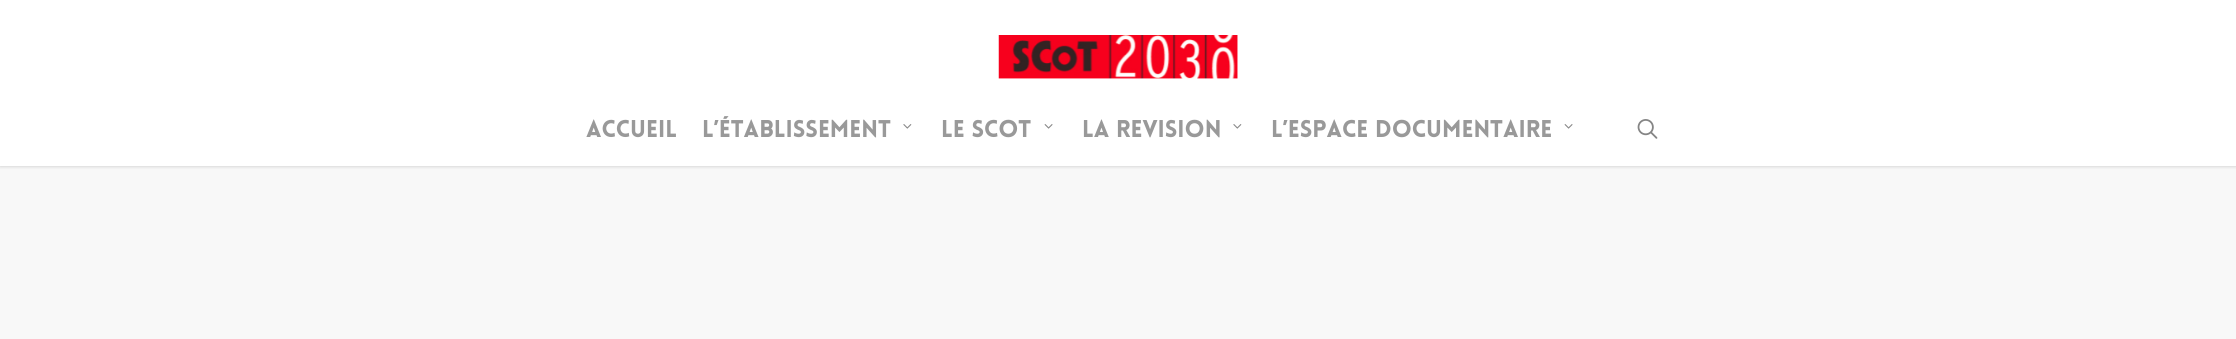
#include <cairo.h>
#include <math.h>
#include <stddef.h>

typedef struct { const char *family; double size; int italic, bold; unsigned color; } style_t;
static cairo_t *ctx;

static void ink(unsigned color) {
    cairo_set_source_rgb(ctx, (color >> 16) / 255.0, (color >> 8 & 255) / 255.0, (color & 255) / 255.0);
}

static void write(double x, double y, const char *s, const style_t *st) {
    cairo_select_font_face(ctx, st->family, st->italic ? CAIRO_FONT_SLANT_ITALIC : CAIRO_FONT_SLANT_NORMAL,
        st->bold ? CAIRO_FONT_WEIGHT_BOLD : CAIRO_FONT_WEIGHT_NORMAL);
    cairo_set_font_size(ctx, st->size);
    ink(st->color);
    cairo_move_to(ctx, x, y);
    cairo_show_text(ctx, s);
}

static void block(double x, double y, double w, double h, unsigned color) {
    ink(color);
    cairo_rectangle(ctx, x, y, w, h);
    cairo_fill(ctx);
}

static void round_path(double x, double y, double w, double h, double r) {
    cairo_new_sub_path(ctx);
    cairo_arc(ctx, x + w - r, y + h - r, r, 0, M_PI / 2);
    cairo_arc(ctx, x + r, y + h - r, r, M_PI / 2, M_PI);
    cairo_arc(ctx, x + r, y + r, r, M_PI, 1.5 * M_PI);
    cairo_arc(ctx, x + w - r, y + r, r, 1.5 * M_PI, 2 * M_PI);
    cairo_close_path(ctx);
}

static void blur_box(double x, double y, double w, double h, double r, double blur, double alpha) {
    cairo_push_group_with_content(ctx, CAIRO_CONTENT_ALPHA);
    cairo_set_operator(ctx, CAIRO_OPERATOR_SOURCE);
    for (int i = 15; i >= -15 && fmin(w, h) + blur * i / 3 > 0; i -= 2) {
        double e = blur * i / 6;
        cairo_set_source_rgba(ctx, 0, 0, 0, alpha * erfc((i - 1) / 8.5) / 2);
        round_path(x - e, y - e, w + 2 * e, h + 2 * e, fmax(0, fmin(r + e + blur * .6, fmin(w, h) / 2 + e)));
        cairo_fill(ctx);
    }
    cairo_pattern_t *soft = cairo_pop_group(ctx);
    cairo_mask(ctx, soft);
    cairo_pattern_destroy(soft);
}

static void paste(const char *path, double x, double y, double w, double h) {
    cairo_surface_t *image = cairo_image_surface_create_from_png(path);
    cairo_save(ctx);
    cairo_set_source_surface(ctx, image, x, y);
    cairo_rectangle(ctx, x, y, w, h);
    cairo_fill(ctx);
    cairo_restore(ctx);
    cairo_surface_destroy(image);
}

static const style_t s1 = {"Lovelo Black", 23.75, 0, 0, 0x999999};

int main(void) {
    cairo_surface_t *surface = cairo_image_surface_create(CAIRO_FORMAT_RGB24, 2236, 339);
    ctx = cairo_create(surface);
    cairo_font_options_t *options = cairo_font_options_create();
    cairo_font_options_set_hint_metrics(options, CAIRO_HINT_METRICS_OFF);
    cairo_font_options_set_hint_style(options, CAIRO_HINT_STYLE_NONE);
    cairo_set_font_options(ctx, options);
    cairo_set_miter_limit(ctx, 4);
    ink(0xf8f8f8);
    cairo_paint(ctx);
    ink(0x000000);
    blur_box(0, 0, 2236, 166, 0, 2, 0.22);
    block(0, 0, 2236, 166, 0xffffff);
    paste("pic1.png", 998, 35, 240, 44);
    write(586, 137, "Accueil", &s1);
    write(702, 137, "L’établissement", &s1);
    paste("pic2.png", 903, 124, 9, 5);
    write(941, 137, "Le SCoT", &s1);
    paste("pic3.png", 1044, 124, 9, 5);
    write(1082, 137, "LA REVISION", &s1);
    paste("pic2.png", 1233, 124, 9, 5);
    write(1271, 137, "L’espace documentaire", &s1);
    paste("pic3.png", 1564, 124, 9, 5);
    paste("pic4.png", 1637, 119, 21, 20);
    cairo_surface_write_to_png(surface, "screenshot.png");
    cairo_font_options_destroy(options);
    cairo_destroy(ctx);
    cairo_surface_destroy(surface);
    return 0;
}
